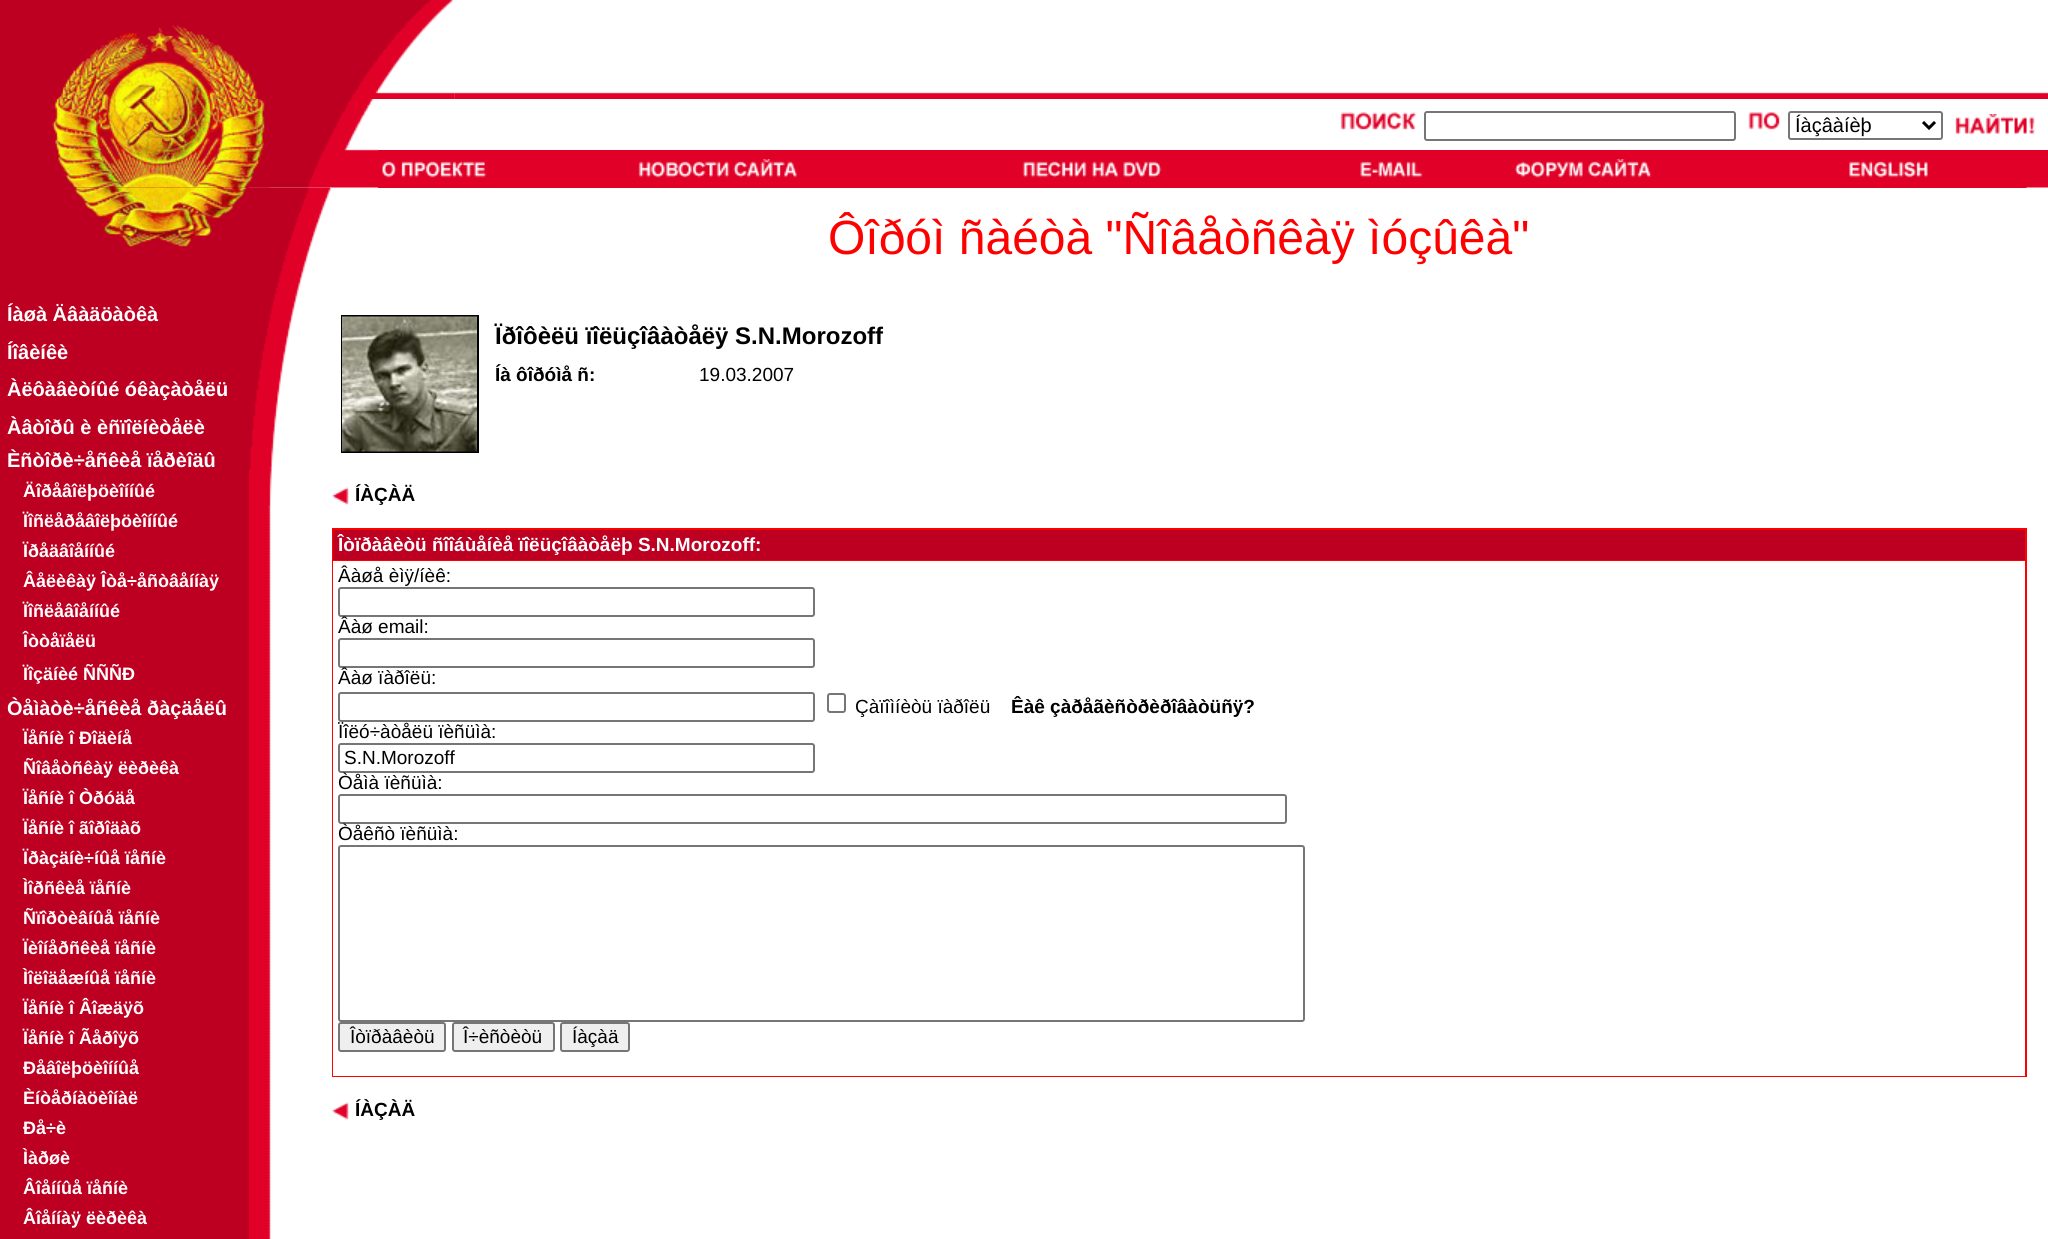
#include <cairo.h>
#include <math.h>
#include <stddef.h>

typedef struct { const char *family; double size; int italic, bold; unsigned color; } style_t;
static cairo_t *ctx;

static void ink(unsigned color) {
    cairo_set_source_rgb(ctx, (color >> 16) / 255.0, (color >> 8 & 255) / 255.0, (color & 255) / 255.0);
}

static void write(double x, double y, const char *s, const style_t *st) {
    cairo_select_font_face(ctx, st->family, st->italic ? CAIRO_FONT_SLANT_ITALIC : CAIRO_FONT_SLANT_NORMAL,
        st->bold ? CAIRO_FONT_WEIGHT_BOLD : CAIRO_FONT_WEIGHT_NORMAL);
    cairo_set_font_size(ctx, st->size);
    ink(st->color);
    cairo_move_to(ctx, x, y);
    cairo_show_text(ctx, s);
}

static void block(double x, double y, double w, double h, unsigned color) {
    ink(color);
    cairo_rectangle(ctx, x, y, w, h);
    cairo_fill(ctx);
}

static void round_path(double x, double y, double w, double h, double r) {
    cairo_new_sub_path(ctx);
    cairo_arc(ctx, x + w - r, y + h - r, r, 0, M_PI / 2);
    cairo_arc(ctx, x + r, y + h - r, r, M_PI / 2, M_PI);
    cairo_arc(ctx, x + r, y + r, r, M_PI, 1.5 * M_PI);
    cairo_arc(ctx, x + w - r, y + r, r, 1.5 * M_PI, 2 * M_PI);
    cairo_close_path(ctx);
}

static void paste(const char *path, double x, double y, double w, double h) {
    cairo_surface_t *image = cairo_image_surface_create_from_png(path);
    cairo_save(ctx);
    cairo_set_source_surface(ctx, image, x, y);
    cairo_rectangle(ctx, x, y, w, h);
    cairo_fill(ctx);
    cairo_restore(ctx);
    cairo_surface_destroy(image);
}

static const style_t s1 = {"Liberation Sans", 20, 0, 0, 0x000000};
static const style_t s2 = {"Liberation Sans", 20, 0, 1, 0xffffff};
static const style_t s3 = {"Liberation Sans", 18, 0, 1, 0xffffff};
static const style_t s4 = {"Liberation Sans", 48, 0, 0, 0xff0000};
static const style_t s5 = {"Liberation Sans", 24, 0, 1, 0x000000};
static const style_t s6 = {"Liberation Sans", 19, 0, 1, 0x000000};
static const style_t s7 = {"Liberation Sans", 19, 0, 0, 0x000000};
static const style_t s8 = {"Liberation Sans", 19, 0, 1, 0xffffff};

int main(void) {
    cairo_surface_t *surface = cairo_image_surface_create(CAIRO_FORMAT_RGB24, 2048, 1239);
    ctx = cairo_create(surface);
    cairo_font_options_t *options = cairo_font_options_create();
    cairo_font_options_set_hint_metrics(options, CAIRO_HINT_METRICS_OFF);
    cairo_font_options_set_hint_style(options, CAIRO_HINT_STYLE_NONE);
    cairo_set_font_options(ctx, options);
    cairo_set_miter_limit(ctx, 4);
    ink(0xffffff);
    cairo_paint(ctx);
    paste("pic1.png", 0, 0, 378, 99);
    paste("pic2.png", 454, 92, 1, 7);
    paste("pic4.png", 454, 92, 1594, 7);
    paste("pic3.png", 378, 0, 77, 99);
    paste("pic15.png", 249, 187, 22, 1052);
    block(0, 187, 249, 1052, 0xbd0021);
    paste("pic5.png", 0, 99, 378, 89);
    paste("pic6.png", 1340, 112, 77, 18);
    round_path(1425, 112, 310, 28, 2);
    ink(0x767676);
    cairo_stroke(ctx);
    paste("pic7.png", 1748, 112, 32, 18);
    round_path(1789, 112, 153, 27, 2);
    cairo_stroke(ctx);
    cairo_new_path(ctx);
    cairo_move_to(ctx, 1923, 122);
    cairo_line_to(ctx, 1929, 128);
    cairo_line_to(ctx, 1935, 122);
    ink(0x000000);
    cairo_set_line_width(ctx, 3);
    cairo_stroke(ctx);
    write(1795, 132, "Íàçâàíèþ", &s1);
    paste("pic8.png", 1955, 114, 80, 20);
    block(378, 150, 1670, 38, 0xe10027);
    paste("pic9.png", 382, 161, 105, 17);
    paste("pic10.png", 638, 159, 159, 19);
    paste("pic11.png", 1022, 161, 140, 17);
    paste("pic12.png", 1360, 161, 63, 17);
    paste("pic13.png", 1514, 159, 138, 19);
    paste("pic14.png", 1849, 161, 79, 17);
    paste("pic16.png", 249, 187, 83, 320);
    paste("pic17.png", 2026, 187, 22, 1);
    paste("pic18.png", 73, 187, 174, 60);
    write(7, 321, "Íàøà Äâàäöàòêà", &s2);
    write(7, 359, "Íîâèíêè", &s2);
    write(7, 396, "Àëôàâèòíûé óêàçàòåëü", &s2);
    write(7, 434, "Àâòîðû è èñïîëíèòåëè", &s2);
    write(7, 467, "Èñòîðè÷åñêèå ïåðèîäû", &s2);
    write(23, 497, "Äîðåâîëþöèîííûé", &s3);
    write(23, 527, "Ïîñëåðåâîëþöèîííûé", &s3);
    write(23, 557, "Ïðåäâîåííûé", &s3);
    write(23, 587, "Âåëèêàÿ Îòå÷åñòâåííàÿ", &s3);
    write(23, 617, "Ïîñëåâîåííûé", &s3);
    write(23, 647, "Îòòåïåëü", &s3);
    write(23, 680, "Ïîçäíèé ÑÑÑÐ", &s3);
    write(7, 715, "Òåìàòè÷åñêèå ðàçäåëû", &s2);
    write(23, 744, "Ïåñíè î Ðîäèíå", &s3);
    write(23, 774, "Ñîâåòñêàÿ ëèðèêà", &s3);
    write(23, 804, "Ïåñíè î Òðóäå", &s3);
    write(23, 834, "Ïåñíè î ãîðîäàõ", &s3);
    write(23, 864, "Ïðàçäíè÷íûå ïåñíè", &s3);
    write(23, 894, "Ìîðñêèå ïåñíè", &s3);
    write(23, 924, "Ñïîðòèâíûå ïåñíè", &s3);
    write(23, 954, "Ïèîíåðñêèå ïåñíè", &s3);
    write(23, 984, "Ìîëîäåæíûå ïåñíè", &s3);
    write(23, 1014, "Ïåñíè î Âîæäÿõ", &s3);
    write(23, 1044, "Ïåñíè î Ãåðîÿõ", &s3);
    write(23, 1074, "Ðåâîëþöèîííûå", &s3);
    write(23, 1104, "Èíòåðíàöèîíàë", &s3);
    write(23, 1134, "Ðå÷è", &s3);
    write(23, 1164, "Ìàðøè", &s3);
    write(23, 1194, "Âîåííûå ïåñíè", &s3);
    write(23, 1224, "Âîåííàÿ ëèðèêà", &s3);
    write(828, 254, "Ôîðóì ñàéòà \"Ñîâåòñêàÿ ìóçûêà\"", &s4);
    cairo_rectangle(ctx, 342, 316, 136, 136);
    ink(0x000000);
    cairo_set_line_width(ctx, 2);
    cairo_stroke(ctx);
    paste("pic19.png", 342, 316, 135, 136);
    write(495, 344, "Ïðîôèëü ïîëüçîâàòåëÿ S.N.Morozoff", &s5);
    write(495, 381, "Íà ôîðóìå ñ:", &s6);
    write(699, 381, "19.03.2007", &s7);
    paste("pic20.png", 332, 487, 17, 18);
    write(355, 501, "ÍÀÇÀÄ", &s6);
    block(332, 528, 1695, 549, 0xff0000);
    block(333, 530, 1692, 30, 0xbd0021);
    write(338, 551, "Îòïðàâèòü ñîîáùåíèå ïîëüçîâàòåëþ S.N.Morozoff:", &s8);
    block(333, 561, 1692, 515, 0xffffff);
    write(338, 582, "Âàøå èìÿ/íèê:", &s7);
    round_path(339, 588, 475, 28, 2);
    ink(0x767676);
    cairo_stroke(ctx);
    write(338, 633, "Âàø email:", &s7);
    round_path(339, 639, 475, 28, 2);
    ink(0x767676);
    cairo_stroke(ctx);
    write(338, 684, "Âàø ïàðîëü:", &s7);
    round_path(339, 693, 475, 28, 2);
    ink(0x767676);
    cairo_stroke(ctx);
    round_path(828, 694, 17, 18, 2);
    cairo_stroke(ctx);
    write(855, 713, "Çàïîìíèòü ïàðîëü", &s7);
    write(1011, 713, "Êàê çàðåãèñòðèðîâàòüñÿ?", &s6);
    write(338, 738, "Ïîëó÷àòåëü ïèñüìà:", &s7);
    round_path(339, 744, 475, 28, 2);
    ink(0x767676);
    cairo_stroke(ctx);
    write(344, 764, "S.N.Morozoff", &s7);
    write(338, 789, "Òåìà ïèñüìà:", &s7);
    round_path(339, 795, 947, 28, 2);
    ink(0x767676);
    cairo_stroke(ctx);
    write(338, 840, "Òåêñò ïèñüìà:", &s7);
    round_path(339, 846, 965, 175, 2);
    ink(0x767676);
    cairo_stroke(ctx);
    ink(0xefefef);
    round_path(339, 1023, 106, 28, 2);
    cairo_fill_preserve(ctx);
    ink(0x767676);
    cairo_stroke(ctx);
    write(350, 1043, "Îòïðàâèòü", &s7);
    ink(0xefefef);
    round_path(453, 1023, 101, 28, 2);
    cairo_fill_preserve(ctx);
    ink(0x767676);
    cairo_stroke(ctx);
    write(463, 1043, "Î÷èñòèòü", &s7);
    ink(0xefefef);
    round_path(561, 1023, 68, 28, 2);
    cairo_fill_preserve(ctx);
    ink(0x767676);
    cairo_stroke(ctx);
    write(572, 1043, "Íàçàä", &s7);
    paste("pic20.png", 332, 1102, 17, 18);
    write(355, 1116, "ÍÀÇÀÄ", &s6);
    cairo_surface_write_to_png(surface, "screenshot.png");
    cairo_font_options_destroy(options);
    cairo_destroy(ctx);
    cairo_surface_destroy(surface);
    return 0;
}
